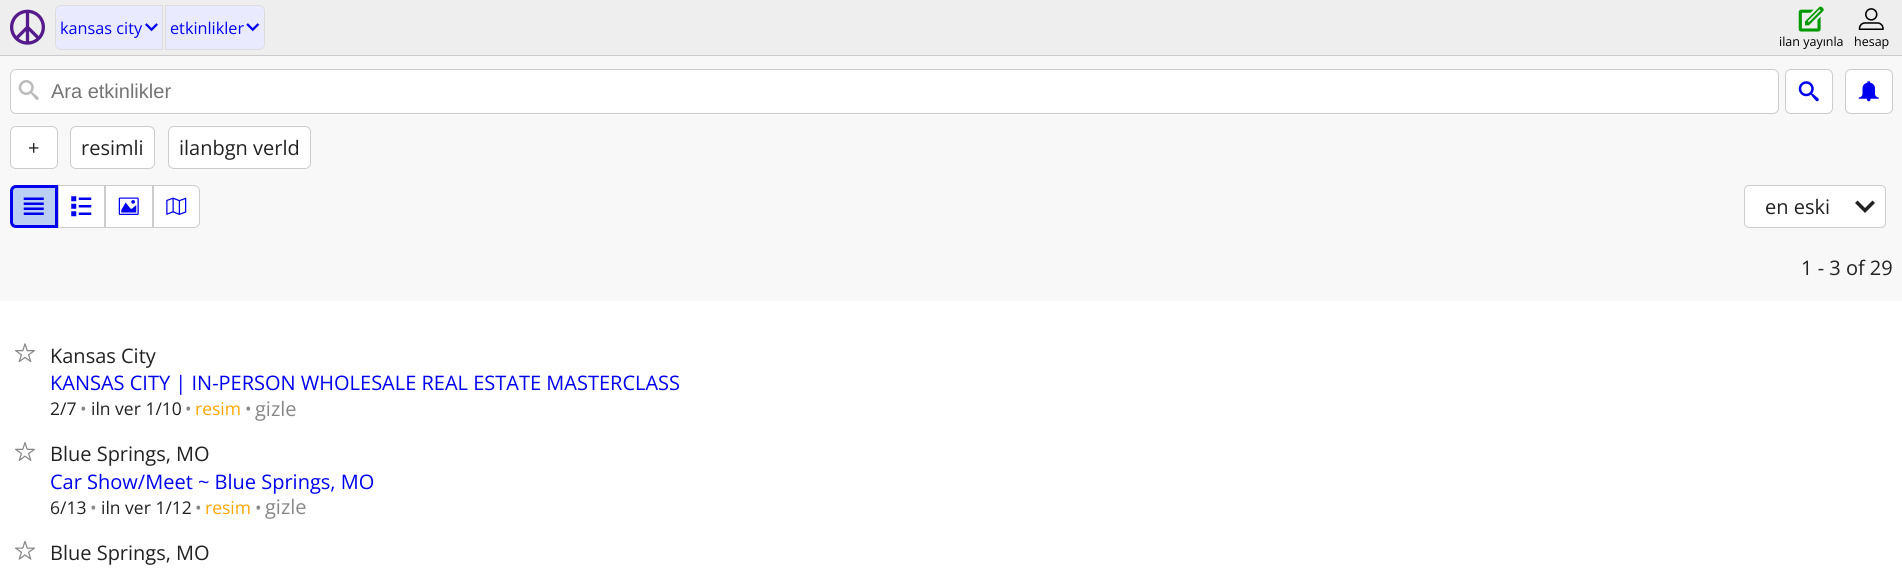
#include <cairo.h>
#include <math.h>
#include <stddef.h>

typedef struct { const char *family; double size; int italic, bold; unsigned color; } style_t;
static cairo_t *ctx;

static void ink(unsigned color) {
    cairo_set_source_rgb(ctx, (color >> 16) / 255.0, (color >> 8 & 255) / 255.0, (color & 255) / 255.0);
}

static void write(double x, double y, const char *s, const style_t *st) {
    cairo_select_font_face(ctx, st->family, st->italic ? CAIRO_FONT_SLANT_ITALIC : CAIRO_FONT_SLANT_NORMAL,
        st->bold ? CAIRO_FONT_WEIGHT_BOLD : CAIRO_FONT_WEIGHT_NORMAL);
    cairo_set_font_size(ctx, st->size);
    ink(st->color);
    cairo_move_to(ctx, x, y);
    cairo_show_text(ctx, s);
}

static void block(double x, double y, double w, double h, unsigned color) {
    ink(color);
    cairo_rectangle(ctx, x, y, w, h);
    cairo_fill(ctx);
}

static void round_path(double x, double y, double w, double h, double r) {
    cairo_new_sub_path(ctx);
    cairo_arc(ctx, x + w - r, y + h - r, r, 0, M_PI / 2);
    cairo_arc(ctx, x + r, y + h - r, r, M_PI / 2, M_PI);
    cairo_arc(ctx, x + r, y + r, r, M_PI, 1.5 * M_PI);
    cairo_arc(ctx, x + w - r, y + r, r, 1.5 * M_PI, 2 * M_PI);
    cairo_close_path(ctx);
}

static void paste(const char *path, double x, double y, double w, double h) {
    cairo_surface_t *image = cairo_image_surface_create_from_png(path);
    cairo_save(ctx);
    cairo_set_source_surface(ctx, image, x, y);
    cairo_rectangle(ctx, x, y, w, h);
    cairo_fill(ctx);
    cairo_restore(ctx);
    cairo_surface_destroy(image);
}

static const style_t s1 = {"Open Sans", 16.25, 0, 0, 0x0000ee};
static const style_t s2 = {"Open Sans", 12.5, 0, 0, 0x000000};
static const style_t s3 = {"Liberation Sans", 20, 0, 0, 0x757575};
static const style_t s4 = {"Open Sans", 20, 0, 0, 0x222222};
static const style_t s5 = {"Open Sans", 20, 0, 0, 0x0000ee};
static const style_t s6 = {"Open Sans", 17.5, 0, 0, 0x222222};
static const style_t s7 = {"Open Sans", 17.5, 0, 0, 0x888888};
static const style_t s8 = {"Open Sans", 17.5, 0, 0, 0xffa500};
static const style_t s9 = {"Open Sans", 20, 0, 0, 0x888888};

int main(void) {
    cairo_surface_t *surface = cairo_image_surface_create(CAIRO_FORMAT_RGB24, 1902, 576);
    ctx = cairo_create(surface);
    cairo_font_options_t *options = cairo_font_options_create();
    cairo_font_options_set_hint_metrics(options, CAIRO_HINT_METRICS_OFF);
    cairo_font_options_set_hint_style(options, CAIRO_HINT_STYLE_NONE);
    cairo_set_font_options(ctx, options);
    cairo_set_miter_limit(ctx, 4);
    ink(0xffffff);
    cairo_paint(ctx);
    block(0, 0, 1902, 55, 0xeeeeee);
    block(0, 55, 1902, 1, 0xcccccc);
    paste("pic1.png", 10, 9, 35, 36);
    ink(0xeaeaff);
    cairo_new_path(ctx);
    cairo_move_to(ctx, 61, 5.5);
    cairo_line_to(ctx, 162.5, 5.5);
    cairo_line_to(ctx, 162.5, 49.5);
    cairo_line_to(ctx, 61, 49.5);
    cairo_curve_to(ctx, 58, 49.5, 55.5, 47, 55.5, 44);
    cairo_line_to(ctx, 55.5, 11);
    cairo_curve_to(ctx, 55.5, 8, 58, 5.5, 61, 5.5);
    cairo_close_path(ctx);
    cairo_fill_preserve(ctx);
    ink(0xdddddd);
    cairo_set_line_width(ctx, 1);
    cairo_stroke(ctx);
    write(60, 34, "kansas city", &s1);
    paste("pic2.png", 145, 23, 13, 9);
    ink(0xeaeaff);
    cairo_new_path(ctx);
    cairo_move_to(ctx, 165.5, 5.5);
    cairo_line_to(ctx, 259, 5.5);
    cairo_curve_to(ctx, 262, 5.5, 264.5, 8, 264.5, 11);
    cairo_line_to(ctx, 264.5, 44);
    cairo_curve_to(ctx, 264.5, 47, 262, 49.5, 259, 49.5);
    cairo_line_to(ctx, 165.5, 49.5);
    cairo_close_path(ctx);
    cairo_fill_preserve(ctx);
    ink(0xdddddd);
    cairo_stroke(ctx);
    write(170, 34, "etkinlikler", &s1);
    paste("pic3.png", 246, 23, 14, 9);
    paste("pic4.png", 1798, 6, 26, 26);
    write(1779, 46, "ilan yayınla", &s2);
    paste("pic5.png", 1858, 8, 26, 22);
    write(1854, 46, "hesap", &s2);
    block(0, 56, 1902, 245, 0xf8f8f8);
    ink(0xffffff);
    round_path(10.5, 69.5, 1768, 44, 5.5);
    cairo_fill_preserve(ctx);
    ink(0xcccccc);
    cairo_stroke(ctx);
    paste("pic6.png", 18, 80, 21, 20);
    write(51, 98, "Ara etkinlikler", &s3);
    ink(0xffffff);
    round_path(1785.5, 69.5, 47, 44, 5.5);
    cairo_fill_preserve(ctx);
    ink(0xcccccc);
    cairo_stroke(ctx);
    paste("pic7.png", 1798, 81, 21, 21);
    ink(0xffffff);
    round_path(1845.5, 69.5, 47, 44, 5.5);
    cairo_fill_preserve(ctx);
    ink(0xcccccc);
    cairo_stroke(ctx);
    paste("pic8.png", 1858, 81, 21, 21);
    ink(0xffffff);
    round_path(10.5, 126.5, 47, 42, 5.5);
    cairo_fill_preserve(ctx);
    ink(0xcccccc);
    cairo_stroke(ctx);
    write(28, 155, "+", &s4);
    ink(0xffffff);
    round_path(70.5, 126.5, 84, 42, 5.5);
    cairo_fill_preserve(ctx);
    ink(0xcccccc);
    cairo_stroke(ctx);
    write(81, 155, "resimli", &s4);
    ink(0xffffff);
    round_path(168.5, 126.5, 142, 42, 5.5);
    cairo_fill_preserve(ctx);
    ink(0xcccccc);
    cairo_stroke(ctx);
    write(179, 155, "ilanbgn verld", &s4);
    ink(0xbacff2);
    cairo_new_path(ctx);
    cairo_move_to(ctx, 16, 186.5);
    cairo_line_to(ctx, 56.5, 186.5);
    cairo_line_to(ctx, 56.5, 226.5);
    cairo_line_to(ctx, 16, 226.5);
    cairo_curve_to(ctx, 13.5, 226.5, 11.5, 224.5, 11.5, 222);
    cairo_line_to(ctx, 11.5, 191);
    cairo_curve_to(ctx, 11.5, 188.5, 13.5, 186.5, 16, 186.5);
    cairo_close_path(ctx);
    cairo_fill_preserve(ctx);
    ink(0x0000ee);
    cairo_set_line_width(ctx, 3);
    cairo_stroke(ctx);
    paste("pic9.png", 23, 197, 21, 18);
    ink(0xffffff);
    cairo_rectangle(ctx, 58.5, 185.5, 46, 42);
    cairo_fill_preserve(ctx);
    ink(0xcccccc);
    cairo_set_line_width(ctx, 1);
    cairo_stroke(ctx);
    paste("pic10.png", 71, 196, 21, 21);
    ink(0xffffff);
    cairo_rectangle(ctx, 105.5, 185.5, 47, 42);
    cairo_fill_preserve(ctx);
    ink(0xcccccc);
    cairo_stroke(ctx);
    paste("pic11.png", 118, 197, 21, 18);
    ink(0xffffff);
    cairo_new_path(ctx);
    cairo_move_to(ctx, 153.5, 185.5);
    cairo_line_to(ctx, 194, 185.5);
    cairo_curve_to(ctx, 197, 185.5, 199.5, 188, 199.5, 191);
    cairo_line_to(ctx, 199.5, 222);
    cairo_curve_to(ctx, 199.5, 225, 197, 227.5, 194, 227.5);
    cairo_line_to(ctx, 153.5, 227.5);
    cairo_close_path(ctx);
    cairo_fill_preserve(ctx);
    ink(0xcccccc);
    cairo_stroke(ctx);
    paste("pic12.png", 166, 197, 21, 18);
    ink(0xffffff);
    round_path(1744.5, 185.5, 141, 42, 4.5);
    cairo_fill_preserve(ctx);
    ink(0xcccccc);
    cairo_stroke(ctx);
    write(1765, 214, "en eski", &s4);
    cairo_new_path(ctx);
    cairo_move_to(ctx, 1875, 203);
    cairo_line_to(ctx, 1872.5, 200.5);
    cairo_line_to(ctx, 1865, 208);
    cairo_line_to(ctx, 1857.5, 200.5);
    cairo_line_to(ctx, 1855, 203);
    cairo_line_to(ctx, 1865, 213);
    cairo_close_path(ctx);
    cairo_fill(ctx);
    write(1801, 275, "1 - 3 of 29", &s4);
    paste("pic13.png", 15, 343, 20, 20);
    write(50, 363, "Kansas City", &s4);
    write(50, 390, "KANSAS CITY | IN-PERSON WHOLESALE REAL ESTATE MASTERCLASS", &s5);
    write(50, 415, "2/7", &s6);
    write(80, 415, "•", &s7);
    write(91, 415, "iln ver 1/10", &s6);
    write(185, 415, "•", &s7);
    write(195, 415, "resim", &s8);
    write(245, 415, "•", &s7);
    write(255, 416, "gizle", &s9);
    paste("pic14.png", 15, 442, 20, 19);
    write(50, 461, "Blue Springs, MO", &s4);
    write(50, 489, "Car Show/Meet ~ Blue Springs, MO", &s5);
    write(50, 514, "6/13", &s6);
    write(90, 514, "•", &s7);
    write(101, 514, "iln ver 1/12", &s6);
    write(195, 514, "•", &s7);
    write(205, 514, "resim", &s8);
    write(255, 514, "•", &s7);
    write(265, 514, "gizle", &s9);
    paste("pic15.png", 15, 540, 20, 20);
    write(50, 560, "Blue Springs, MO", &s4);
    cairo_surface_write_to_png(surface, "screenshot.png");
    cairo_font_options_destroy(options);
    cairo_destroy(ctx);
    cairo_surface_destroy(surface);
    return 0;
}
